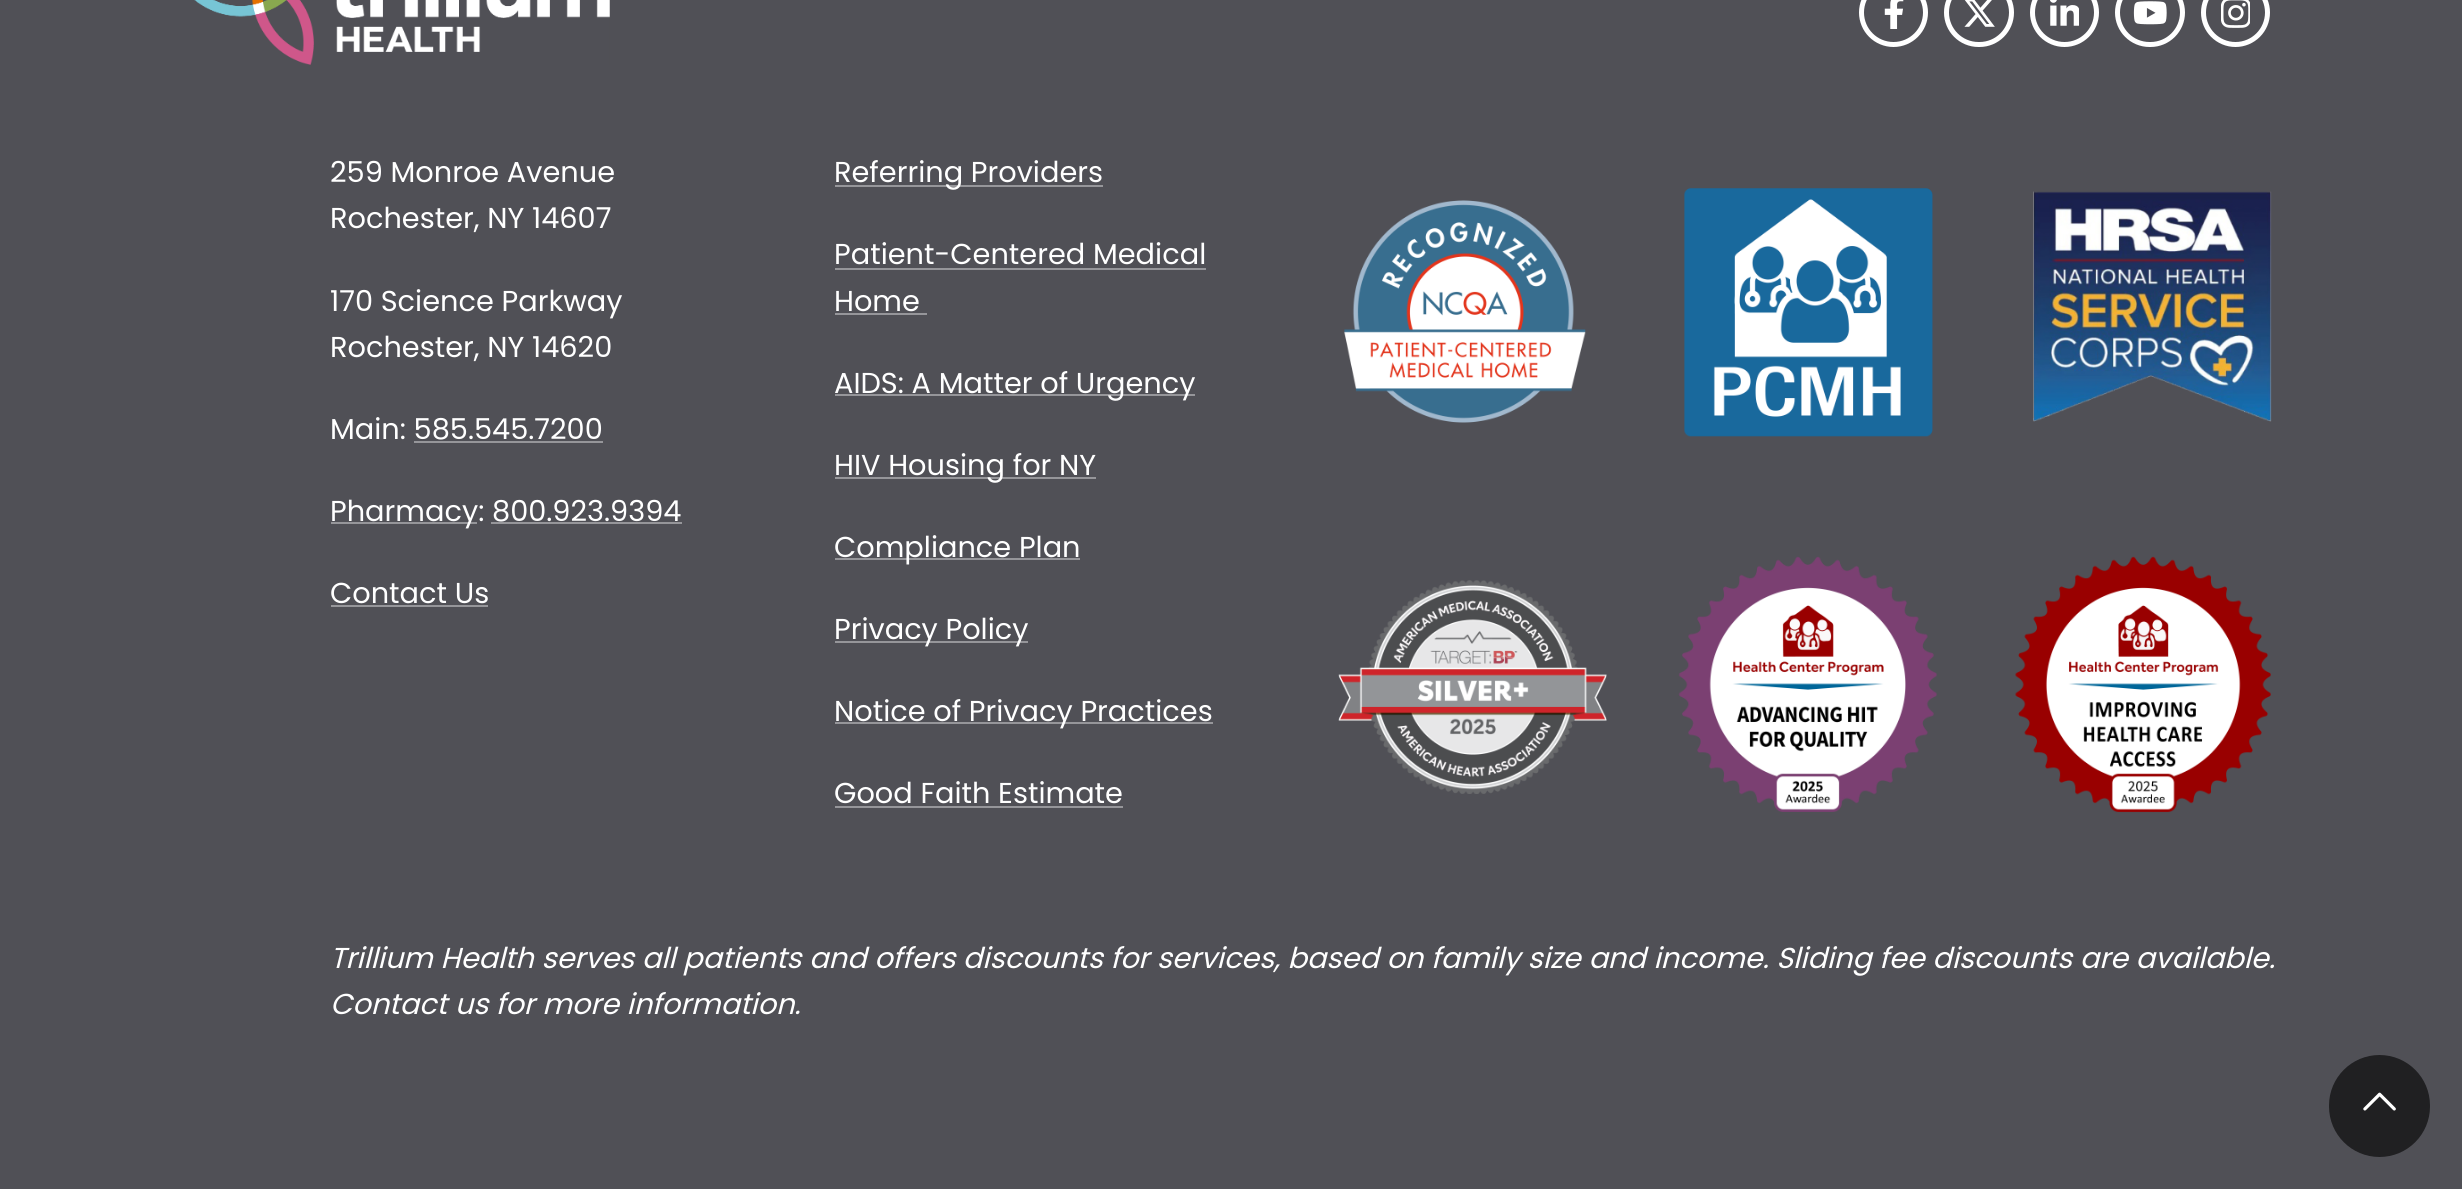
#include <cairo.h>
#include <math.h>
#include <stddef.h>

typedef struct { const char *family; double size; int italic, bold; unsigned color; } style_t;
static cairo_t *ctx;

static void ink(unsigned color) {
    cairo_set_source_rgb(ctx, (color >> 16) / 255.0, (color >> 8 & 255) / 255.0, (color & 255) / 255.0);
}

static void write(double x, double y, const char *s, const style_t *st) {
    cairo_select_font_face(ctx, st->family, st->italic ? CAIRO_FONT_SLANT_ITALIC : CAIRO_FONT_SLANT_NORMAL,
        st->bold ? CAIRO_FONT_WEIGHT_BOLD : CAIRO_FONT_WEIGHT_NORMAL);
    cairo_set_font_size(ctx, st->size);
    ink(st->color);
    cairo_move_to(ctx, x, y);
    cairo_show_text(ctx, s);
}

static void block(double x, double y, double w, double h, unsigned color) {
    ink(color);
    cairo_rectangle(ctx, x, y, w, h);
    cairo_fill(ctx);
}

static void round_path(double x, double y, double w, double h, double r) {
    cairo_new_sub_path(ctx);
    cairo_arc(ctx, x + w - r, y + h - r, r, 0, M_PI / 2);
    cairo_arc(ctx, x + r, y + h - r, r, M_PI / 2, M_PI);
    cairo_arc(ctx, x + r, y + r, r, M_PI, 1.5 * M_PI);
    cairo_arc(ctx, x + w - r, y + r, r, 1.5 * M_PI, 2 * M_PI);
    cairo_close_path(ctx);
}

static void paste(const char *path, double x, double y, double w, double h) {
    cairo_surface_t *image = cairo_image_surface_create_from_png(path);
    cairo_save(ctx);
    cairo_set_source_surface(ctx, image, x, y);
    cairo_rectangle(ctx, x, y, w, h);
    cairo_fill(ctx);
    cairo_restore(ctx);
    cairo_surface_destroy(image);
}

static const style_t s1 = {"Poppins", 28.8, 0, 0, 0xffffff};
static const style_t s2 = {"Poppins", 28.8, 1, 0, 0xffffff};

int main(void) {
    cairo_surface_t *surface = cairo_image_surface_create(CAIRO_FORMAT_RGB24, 2462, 1189);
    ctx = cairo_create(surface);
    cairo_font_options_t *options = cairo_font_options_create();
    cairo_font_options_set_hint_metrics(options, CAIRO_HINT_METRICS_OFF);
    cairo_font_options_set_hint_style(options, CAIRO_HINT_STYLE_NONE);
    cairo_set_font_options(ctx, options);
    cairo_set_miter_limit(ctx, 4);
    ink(0x505056);
    cairo_paint(ctx);
    paste("pic1.png", 194, 0, 416, 65);
    cairo_arc(ctx, 1893.5, 12.5, 32, 0, 2 * M_PI);
    ink(0xffffff);
    cairo_set_line_width(ctx, 5);
    cairo_stroke(ctx);
    paste("pic2.png", 1884, 0, 20, 29);
    round_path(1946.5, -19.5, 65, 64, 32);
    cairo_stroke(ctx);
    paste("pic3.png", 1964, 0, 31, 27);
    cairo_arc(ctx, 2064.5, 12.5, 32, 0, 2 * M_PI);
    cairo_stroke(ctx);
    paste("pic4.png", 2050, 0, 29, 26);
    round_path(2117.5, -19.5, 65, 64, 32);
    cairo_stroke(ctx);
    paste("pic5.png", 2133, 1, 34, 24);
    cairo_arc(ctx, 2235.5, 12.5, 32, 0, 2 * M_PI);
    cairo_stroke(ctx);
    paste("pic6.png", 2221, 0, 29, 28);
    write(330, 182, "259 Monroe Avenue", &s1);
    write(330, 228, "Rochester, NY 14607", &s1);
    write(330, 311, "170 Science Parkway", &s1);
    write(330, 357, "Rochester, NY 14620", &s1);
    write(330, 439, "Main: 585.545.7200", &s1);
    block(414, 441, 189, 2, 0x96969a);
    block(331, 522, 146, 2, 0x96969a);
    write(330, 521, "Pharmacy: 800.923.9394", &s1);
    block(491, 522, 191, 2, 0x96969a);
    write(330, 603, "Contact Us", &s1);
    block(331, 605, 157, 2, 0x96969a);
    block(835, 185, 268, 2, 0x96969a);
    write(834, 182, "Referring Providers", &s1);
    write(834, 264, "Patient-Centered Medical", &s1);
    block(835, 268, 371, 2, 0x96969a);
    write(834, 311, "Home", &s1);
    block(835, 313, 92, 2, 0x96969a);
    block(835, 394, 360, 2, 0x96969a);
    write(834, 393, "AIDS: A Matter of Urgency", &s1);
    block(835, 477, 261, 2, 0x96969a);
    write(834, 475, "HIV Housing for NY", &s1);
    block(835, 558, 245, 2, 0x96969a);
    write(834, 557, "Compliance Plan", &s1);
    block(835, 641, 193, 2, 0x96969a);
    write(834, 639, "Privacy Policy", &s1);
    block(835, 722, 378, 2, 0x96969a);
    write(834, 721, "Notice of Privacy Practices", &s1);
    write(834, 803, "Good Faith Estimate", &s1);
    block(835, 806, 288, 2, 0x96969a);
    paste("pic7.png", 1344, 200, 242, 223);
    paste("pic8.png", 1684, 188, 249, 249);
    paste("pic9.png", 2033, 191, 239, 231);
    paste("pic10.png", 1338, 580, 269, 214);
    paste("pic11.png", 1678, 556, 259, 256);
    paste("pic12.png", 2015, 556, 256, 257);
    write(330, 968, "Trillium Health serves all patients and offers discounts for services, based on family size and income. Sliding fee discounts are available.", &s2);
    write(330, 1014, "Contact us for more information.", &s2);
    ink(0x202022);
    round_path(2329, 1055, 101, 102, 50.5);
    cairo_fill(ctx);
    paste("pic13.png", 2363, 1092, 33, 19);
    cairo_surface_write_to_png(surface, "screenshot.png");
    cairo_font_options_destroy(options);
    cairo_destroy(ctx);
    cairo_surface_destroy(surface);
    return 0;
}
